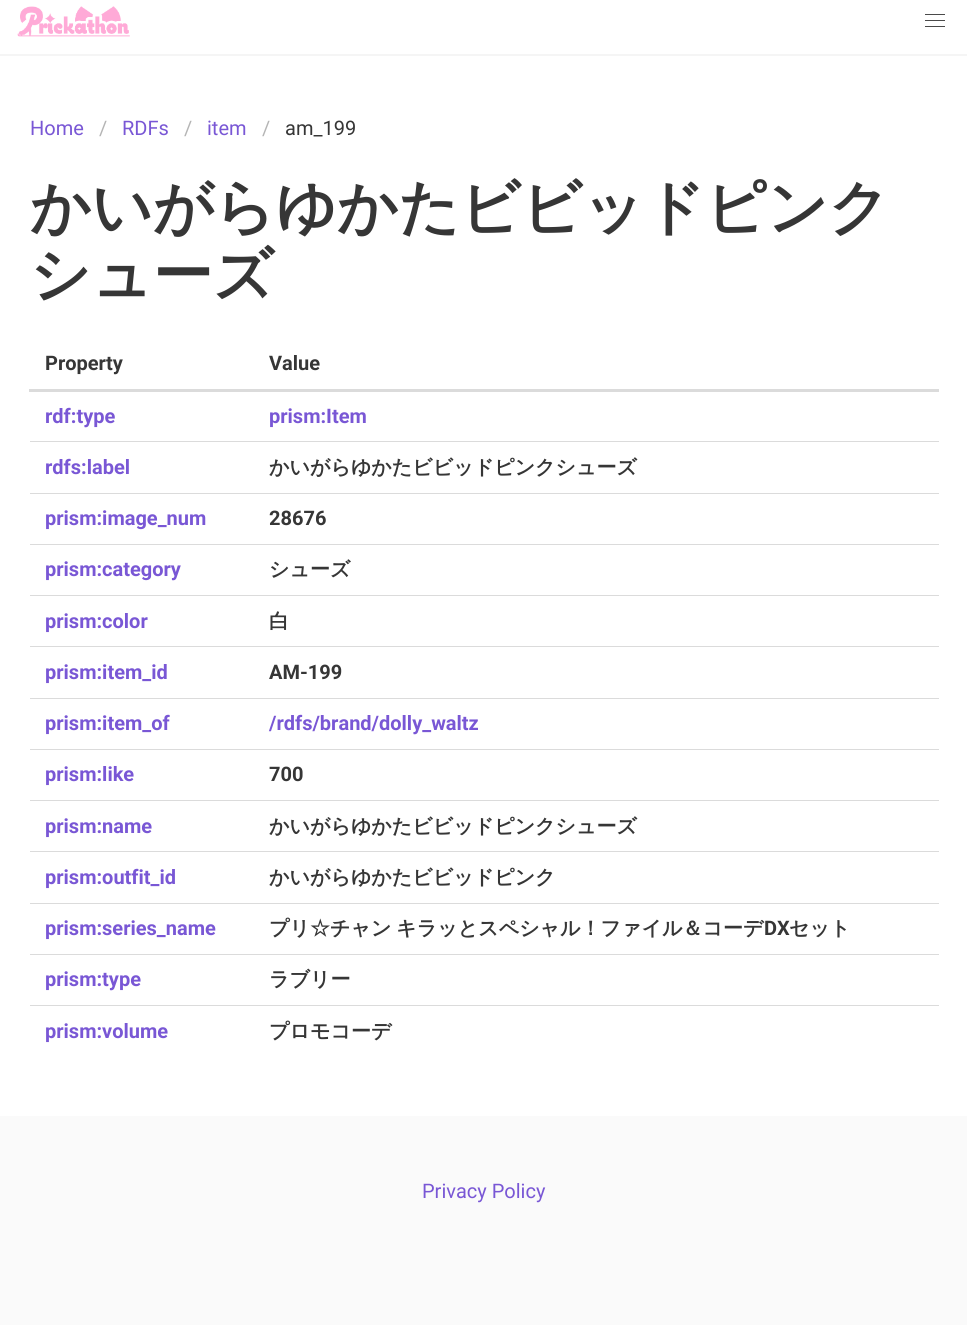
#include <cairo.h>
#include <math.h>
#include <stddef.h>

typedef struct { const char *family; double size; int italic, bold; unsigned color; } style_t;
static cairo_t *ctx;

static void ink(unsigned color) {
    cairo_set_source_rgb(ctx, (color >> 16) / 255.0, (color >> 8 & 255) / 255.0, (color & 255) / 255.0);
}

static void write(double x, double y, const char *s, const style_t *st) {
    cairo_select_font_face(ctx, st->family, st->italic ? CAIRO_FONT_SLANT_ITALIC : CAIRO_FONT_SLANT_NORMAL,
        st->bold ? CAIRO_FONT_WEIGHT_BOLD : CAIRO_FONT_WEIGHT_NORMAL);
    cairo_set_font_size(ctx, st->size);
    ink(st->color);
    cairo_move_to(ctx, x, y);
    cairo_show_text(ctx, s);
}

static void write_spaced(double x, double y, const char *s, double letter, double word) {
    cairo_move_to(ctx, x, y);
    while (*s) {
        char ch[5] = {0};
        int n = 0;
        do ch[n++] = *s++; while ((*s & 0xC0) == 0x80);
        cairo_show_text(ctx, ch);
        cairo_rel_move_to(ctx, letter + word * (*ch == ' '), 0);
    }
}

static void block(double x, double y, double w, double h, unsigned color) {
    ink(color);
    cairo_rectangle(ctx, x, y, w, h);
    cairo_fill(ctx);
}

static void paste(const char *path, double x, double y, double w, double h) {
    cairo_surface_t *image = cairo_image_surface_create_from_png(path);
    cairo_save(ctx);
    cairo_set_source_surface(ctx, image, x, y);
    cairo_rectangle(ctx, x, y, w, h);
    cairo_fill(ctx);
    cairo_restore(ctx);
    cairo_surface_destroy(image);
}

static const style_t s1 = {"Roboto", 20, 0, 0, 0x7957d5};
static const style_t s2 = {"Roboto", 20, 0, 0, 0xb5b5b5};
static const style_t s3 = {"Roboto", 20, 0, 0, 0x363636};
static const style_t s4 = {"WenQuanYi Zen Hei", 60, 0, 1, 0x363636};
static const style_t s5 = {"Roboto", 20, 0, 1, 0x363636};
static const style_t s6 = {"Roboto", 20, 0, 1, 0x7957d5};
static const style_t s7 = {"WenQuanYi Zen Hei", 20, 0, 1, 0x363636};

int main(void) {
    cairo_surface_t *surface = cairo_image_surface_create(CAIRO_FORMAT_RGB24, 967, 1325);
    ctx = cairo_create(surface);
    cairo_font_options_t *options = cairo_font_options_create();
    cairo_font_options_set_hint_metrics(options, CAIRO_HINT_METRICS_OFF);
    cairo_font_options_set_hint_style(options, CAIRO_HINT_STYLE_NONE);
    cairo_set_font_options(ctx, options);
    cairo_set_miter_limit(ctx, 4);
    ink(0xffffff);
    cairo_paint(ctx);
    ink(0xf5f5f5);
    cairo_new_path(ctx);
    cairo_move_to(ctx, 0, 54);
    cairo_line_to(ctx, 0, 56);
    cairo_line_to(ctx, 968, 56);
    cairo_line_to(ctx, 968, -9);
    cairo_line_to(ctx, 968, 54);
    cairo_close_path(ctx);
    cairo_fill(ctx);
    paste("pic1.png", 17, 6, 113, 31);
    block(925, 14, 20, 1, 0x4a4a4a);
    block(925, 20, 20, 1, 0x4a4a4a);
    block(925, 26, 20, 1, 0x4a4a4a);
    write(30, 135, "Home", &s1);
    write(99, 135, "/", &s2);
    write(122, 135, "RDFs", &s1);
    write(184, 135, "/", &s2);
    write(207, 135, "item", &s1);
    write(262, 135, "/", &s2);
    write(285, 135, "am_199", &s3);
    write(30, 228, "かいがらゆかたビビッドピンク", &s4);
    write(30, 295, "シューズ", &s4);
    write(45, 370, "Property", &s5);
    block(29, 389, 910, 3, 0xdbdbdb);
    write(269, 370, "Value", &s5);
    write(45, 423, "rdf:type", &s6);
    block(30, 441, 909, 1, 0xdbdbdb);
    write(269, 423, "prism:Item", &s6);
    write(45, 474, "rdfs:label", &s6);
    block(30, 493, 909, 1, 0xdbdbdb);
    write(269, 474, "かいがらゆかたビビッドピンクシューズ", &s7);
    write(45, 525, "prism:image_num", &s6);
    block(30, 544, 909, 1, 0xdbdbdb);
    write(269, 525, "28676", &s5);
    write(45, 576, "prism:category", &s6);
    block(30, 595, 909, 1, 0xdbdbdb);
    write(269, 576, "シューズ", &s7);
    write(45, 628, "prism:color", &s6);
    block(30, 646, 909, 1, 0xdbdbdb);
    write(269, 628, "白", &s7);
    write(45, 679, "prism:item_id", &s6);
    block(30, 698, 909, 1, 0xdbdbdb);
    write(269, 679, "AM-199", &s5);
    write(45, 730, "prism:item_of", &s6);
    block(30, 749, 909, 1, 0xdbdbdb);
    write(269, 730, "/rdfs/brand/dolly_waltz", &s6);
    write(45, 781, "prism:like", &s6);
    block(30, 800, 909, 1, 0xdbdbdb);
    write(269, 781, "700", &s5);
    write(45, 833, "prism:name", &s6);
    block(30, 851, 909, 1, 0xdbdbdb);
    write(269, 833, "かいがらゆかたビビッドピンクシューズ", &s7);
    write(45, 884, "prism:outfit_id", &s6);
    block(30, 903, 909, 1, 0xdbdbdb);
    write(269, 884, "かいがらゆかたビビッドピンク", &s7);
    write(45, 935, "prism:series_name", &s6);
    block(30, 954, 909, 1, 0xdbdbdb);
    cairo_select_font_face(ctx, "WenQuanYi Zen Hei", CAIRO_FONT_SLANT_NORMAL, CAIRO_FONT_WEIGHT_BOLD);
    ink(0x363636);
    write_spaced(269, 935, "プリ☆チャン キラッとスペシャル！ファイル＆コーデ", 0, -1);
    write(764, 935, "DX", &s5);
    write(789, 935, "セット", &s7);
    write(45, 986, "prism:type", &s6);
    block(30, 1005, 909, 1, 0xdbdbdb);
    write(269, 986, "ラブリー", &s7);
    write(45, 1038, "prism:volume", &s6);
    write(269, 1038, "プロモコーデ", &s7);
    block(0, 1116, 967, 209, 0xfafafa);
    write(422, 1198, "Privacy Policy", &s1);
    cairo_surface_write_to_png(surface, "screenshot.png");
    cairo_font_options_destroy(options);
    cairo_destroy(ctx);
    cairo_surface_destroy(surface);
    return 0;
}
